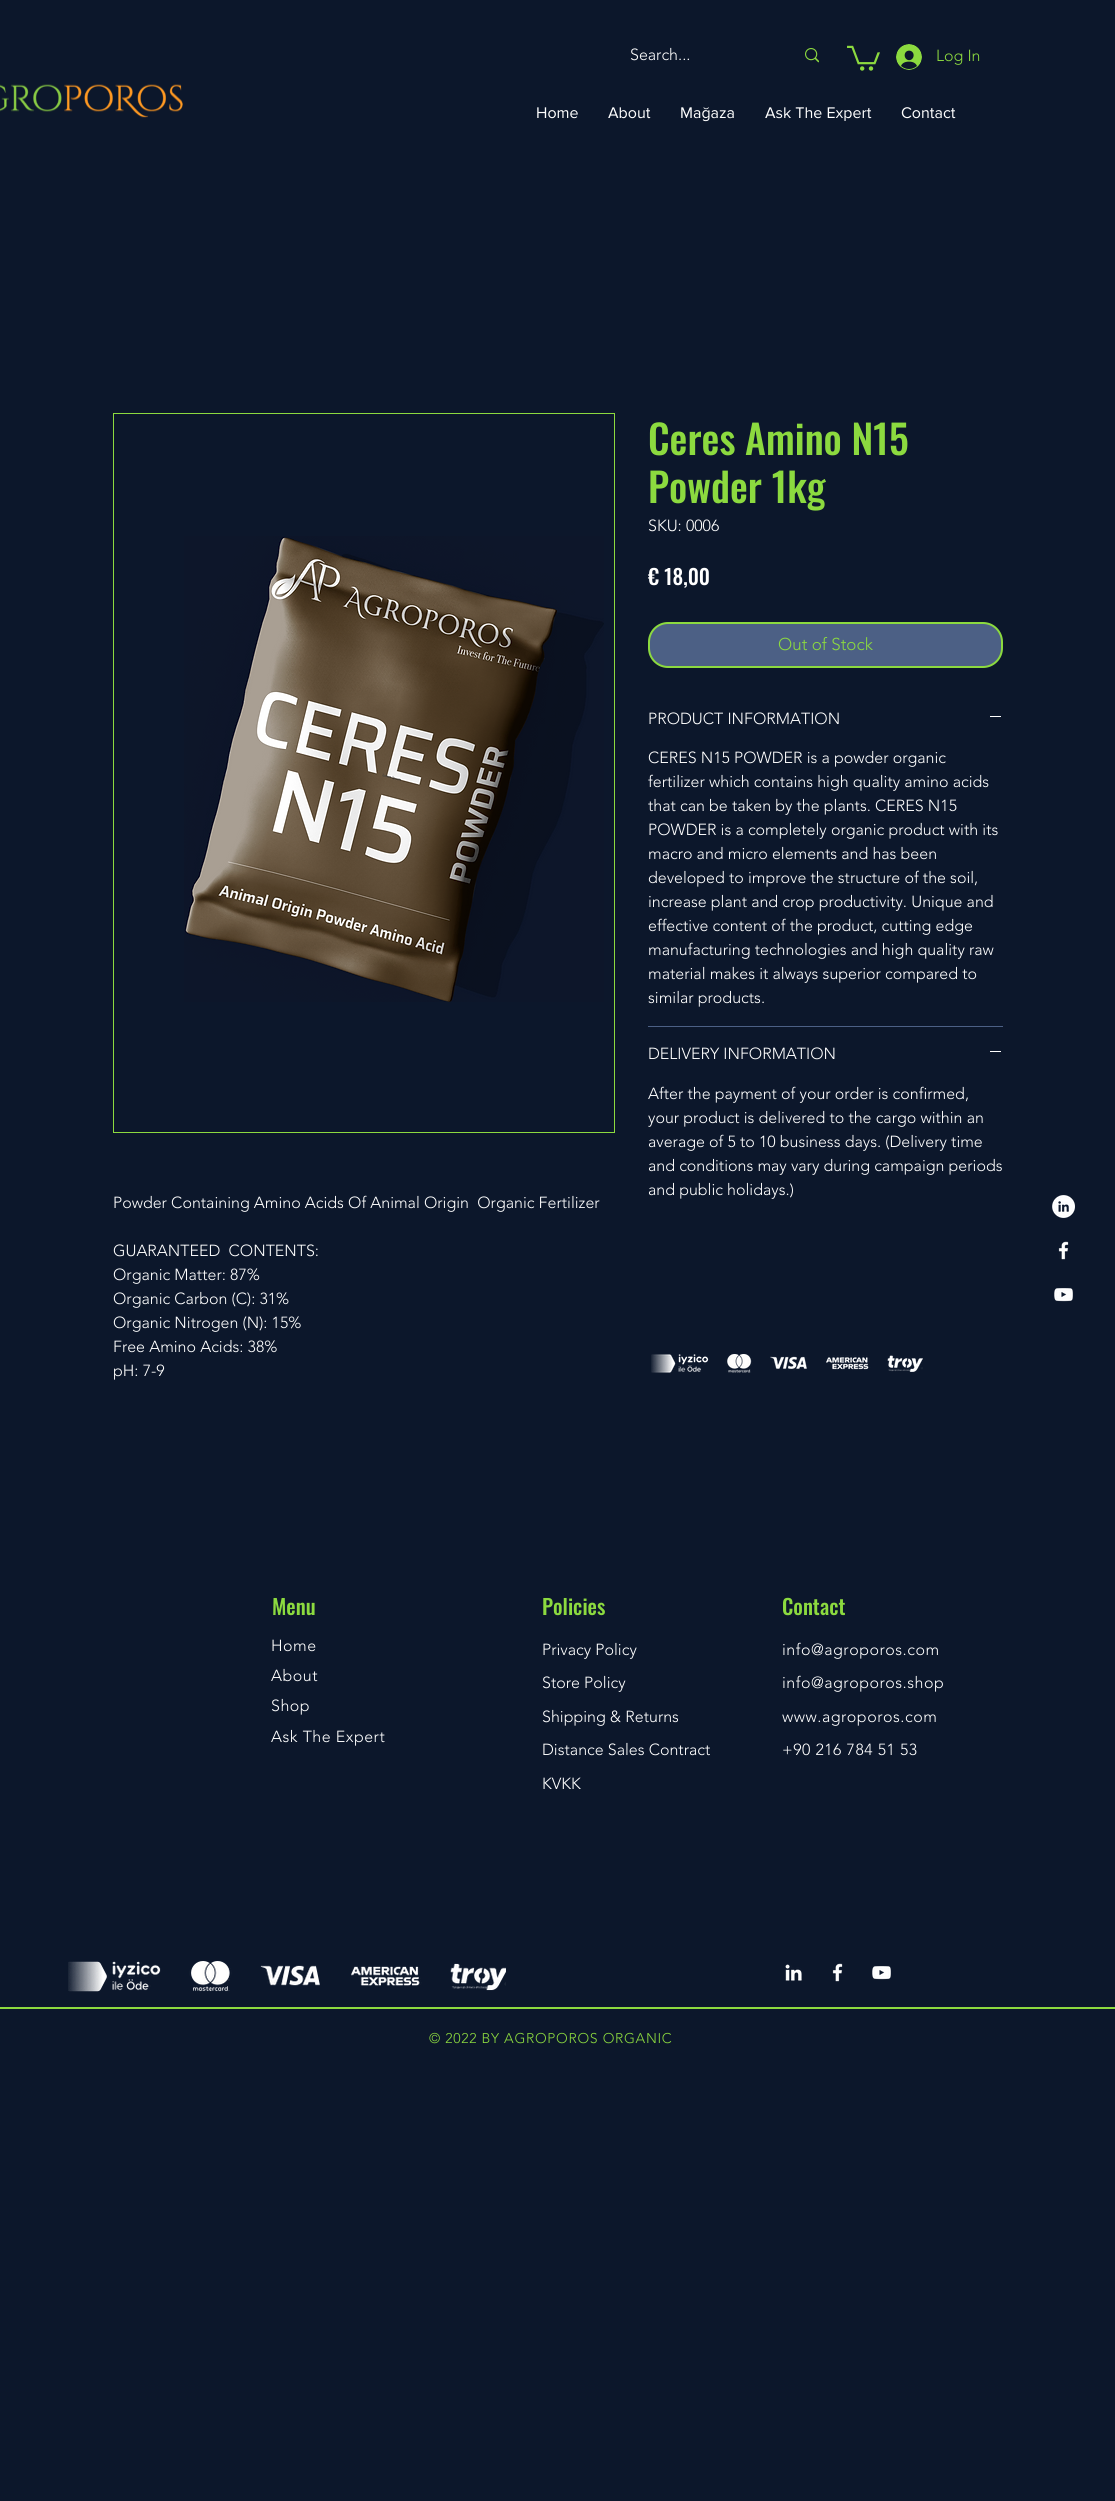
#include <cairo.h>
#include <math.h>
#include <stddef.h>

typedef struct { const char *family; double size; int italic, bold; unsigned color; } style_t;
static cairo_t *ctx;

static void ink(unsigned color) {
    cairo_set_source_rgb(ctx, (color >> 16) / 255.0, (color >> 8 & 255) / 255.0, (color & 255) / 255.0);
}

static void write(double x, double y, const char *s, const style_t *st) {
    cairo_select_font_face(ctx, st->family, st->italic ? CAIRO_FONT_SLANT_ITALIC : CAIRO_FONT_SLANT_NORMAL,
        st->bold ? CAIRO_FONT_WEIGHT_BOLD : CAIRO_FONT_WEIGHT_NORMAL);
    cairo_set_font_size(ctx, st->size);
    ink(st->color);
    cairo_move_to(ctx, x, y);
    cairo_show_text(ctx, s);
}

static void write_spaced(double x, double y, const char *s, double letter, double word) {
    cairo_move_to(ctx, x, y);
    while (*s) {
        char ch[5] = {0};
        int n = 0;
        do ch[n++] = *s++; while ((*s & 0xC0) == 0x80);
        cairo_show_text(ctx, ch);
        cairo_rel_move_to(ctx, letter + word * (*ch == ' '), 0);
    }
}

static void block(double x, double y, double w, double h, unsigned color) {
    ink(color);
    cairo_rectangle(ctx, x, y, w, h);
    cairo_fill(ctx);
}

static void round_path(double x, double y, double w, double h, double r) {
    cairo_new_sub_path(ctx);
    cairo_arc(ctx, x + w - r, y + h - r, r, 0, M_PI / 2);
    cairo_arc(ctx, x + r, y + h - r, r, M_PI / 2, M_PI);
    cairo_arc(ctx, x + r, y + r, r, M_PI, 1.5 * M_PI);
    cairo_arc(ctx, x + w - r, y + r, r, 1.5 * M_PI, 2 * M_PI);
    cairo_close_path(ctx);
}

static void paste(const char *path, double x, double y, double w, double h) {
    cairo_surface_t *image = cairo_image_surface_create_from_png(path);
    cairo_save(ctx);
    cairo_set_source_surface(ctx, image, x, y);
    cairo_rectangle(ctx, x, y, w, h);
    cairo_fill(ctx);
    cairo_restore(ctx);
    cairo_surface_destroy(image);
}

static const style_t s1 = {"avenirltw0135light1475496 Light", 16, 0, 0, 0xffffff};
static const style_t s2 = {"avenirltw0135light1475496 Light", 16, 0, 0, 0x8cda3f};
static const style_t s3 = {"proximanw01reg", 16, 0, 0, 0xffffff};
static const style_t s4 = {"Oswald Medium", 40, 0, 0, 0x8cda3f};
static const style_t s5 = {"Oswald Medium", 21, 0, 0, 0xffffff};
static const style_t s6 = {"avenirltw0135light1475496 Light", 17, 0, 0, 0x8cda3f};
static const style_t s7 = {"Oswald Medium", 21, 0, 0, 0x8cda3f};

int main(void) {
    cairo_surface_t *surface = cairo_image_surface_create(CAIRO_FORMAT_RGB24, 1115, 2501);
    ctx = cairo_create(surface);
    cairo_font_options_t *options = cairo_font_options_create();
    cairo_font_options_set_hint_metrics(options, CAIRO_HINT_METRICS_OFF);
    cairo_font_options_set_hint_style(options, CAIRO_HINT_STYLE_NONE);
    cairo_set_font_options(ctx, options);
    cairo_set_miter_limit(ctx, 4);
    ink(0x0c172b);
    cairo_paint(ctx);
    write(630, 60, "Search...", &s1);
    paste("pic1.png", 805, 48, 14, 15);
    paste("pic2.png", 847, 45, 33, 26);
    paste("pic3.png", 896, 44, 26, 26);
    write(936, 61, "Log In", &s2);
    paste("pic4.png", 0, 84, 183, 34);
    write(536, 118, "Home", &s3);
    write(608, 118, "About", &s3);
    write(680, 118, "Mağaza", &s3);
    write(765, 118, "Ask The Expert", &s3);
    write(901, 118, "Contact", &s3);
    write(648, 455, "Ceres Amino N15", &s4);
    write(648, 503, "Powder 1kg", &s4);
    write(648, 531, "SKU: 0006", &s1);
    write(648, 585, "€ 18,00", &s5);
    ink(0x4c6085);
    round_path(649, 623, 353, 44, 19);
    cairo_fill_preserve(ctx);
    ink(0x8cda3f);
    cairo_stroke(ctx);
    write(778, 650, "Out of Stock", &s6);
    block(648, 1026, 355, 1, 0x4c6085);
    write(648, 724, "PRODUCT INFORMATION", &s1);
    block(990, 716, 11, 1, 0xffffff);
    write(648, 763, "CERES N15 POWDER is a powder organic", &s1);
    write(648, 787, "fertilizer which contains high quality amino acids", &s1);
    write(648, 811, "that can be taken by the plants. CERES N15", &s1);
    write(648, 835, "POWDER is a completely organic product with its", &s1);
    write(648, 859, "macro and micro elements and has been", &s1);
    write(648, 883, "developed to improve the structure of the soil,", &s1);
    write(648, 907, "increase plant and crop productivity. Unique and", &s1);
    write(648, 931, "effective content of the product, cutting edge", &s1);
    write(648, 955, "manufacturing technologies and high quality raw", &s1);
    write(648, 979, "material makes it always superior compared to", &s1);
    write(648, 1003, "similar products.", &s1);
    write(648, 1059, "DELIVERY INFORMATION", &s1);
    block(990, 1051, 11, 1, 0xffffff);
    write(648, 1099, "After the payment of your order is confirmed,", &s1);
    write(648, 1123, "your product is delivered to the cargo within an", &s1);
    write(648, 1147, "average of 5 to 10 business days. (Delivery time", &s1);
    write(648, 1171, "and conditions may vary during campaign periods", &s1);
    write(648, 1195, "and public holidays.)", &s1);
    cairo_rectangle(ctx, 113.5, 413.5, 501, 719);
    ink(0x8cda3f);
    cairo_set_line_width(ctx, 1);
    cairo_stroke(ctx);
    paste("pic5.png", 184, 536, 420, 466);
    write(113, 1208, "Powder Containing Amino Acids Of Animal Origin  Organic Fertilizer", &s1);
    write(113, 1256, "GUARANTEED  CONTENTS:", &s1);
    write(113, 1280, "Organic Matter: 87%", &s1);
    write(113, 1304, "Organic Carbon (C): 31%", &s1);
    write(113, 1328, "Organic Nitrogen (N): 15%", &s1);
    write(113, 1352, "Free Amino Acids: 38%", &s1);
    write(113, 1376, "pH: 7-9", &s1);
    paste("pic6.png", 651, 1354, 272, 19);
    paste("pic7.png", 1052, 1195, 23, 23);
    paste("pic8.png", 1058, 1241, 11, 19);
    paste("pic9.png", 1054, 1288, 19, 14);
    write(272, 1615, "Menu", &s7);
    cairo_select_font_face(ctx, "avenirltw0135light1475496 Light", CAIRO_FONT_SLANT_NORMAL, CAIRO_FONT_WEIGHT_NORMAL);
    cairo_set_font_size(ctx, 16);
    ink(0xffffff);
    write_spaced(271, 1651, "Home", 0.5, 0);
    write_spaced(271, 1681, "About", 0.5, 0);
    write_spaced(271, 1711, "Shop", 0.5, 0);
    write_spaced(271, 1742, "Ask The Expert", 0.5, 0);
    write(542, 1615, "Policies", &s7);
    write(542, 1655, "Privacy Policy", &s1);
    write(542, 1688, "Store Policy", &s1);
    write(542, 1722, "Shipping & Returns", &s1);
    write(542, 1755, "Distance Sales Contract", &s1);
    write(542, 1789, "KVKK", &s1);
    write(782, 1615, "Contact", &s7);
    cairo_select_font_face(ctx, "avenirltw0135light1475496 Light", CAIRO_FONT_SLANT_NORMAL, CAIRO_FONT_WEIGHT_NORMAL);
    cairo_set_font_size(ctx, 16);
    ink(0xffffff);
    write_spaced(782, 1655, "info@agroporos.com", 0.5, 0);
    write_spaced(782, 1688, "info@agroporos.shop", 0.5, 0);
    write_spaced(782, 1722, "www.agroporos.com", 0.5, 0);
    write_spaced(782, 1755, "+90 216 784 51 53", 0.5, 0);
    paste("pic10.png", 785, 1964, 17, 17);
    paste("pic8.png", 832, 1963, 11, 19);
    paste("pic9.png", 872, 1966, 19, 14);
    paste("pic11.png", 68, 1961, 438, 31);
    block(0, 2007, 1115, 2, 0x8cda3f);
    cairo_set_font_size(ctx, 14);
    write_spaced(429, 2043, "© 2022 BY AGROPOROS ORGANIC", 0.7, 0);
    cairo_surface_write_to_png(surface, "screenshot.png");
    cairo_font_options_destroy(options);
    cairo_destroy(ctx);
    cairo_surface_destroy(surface);
    return 0;
}
